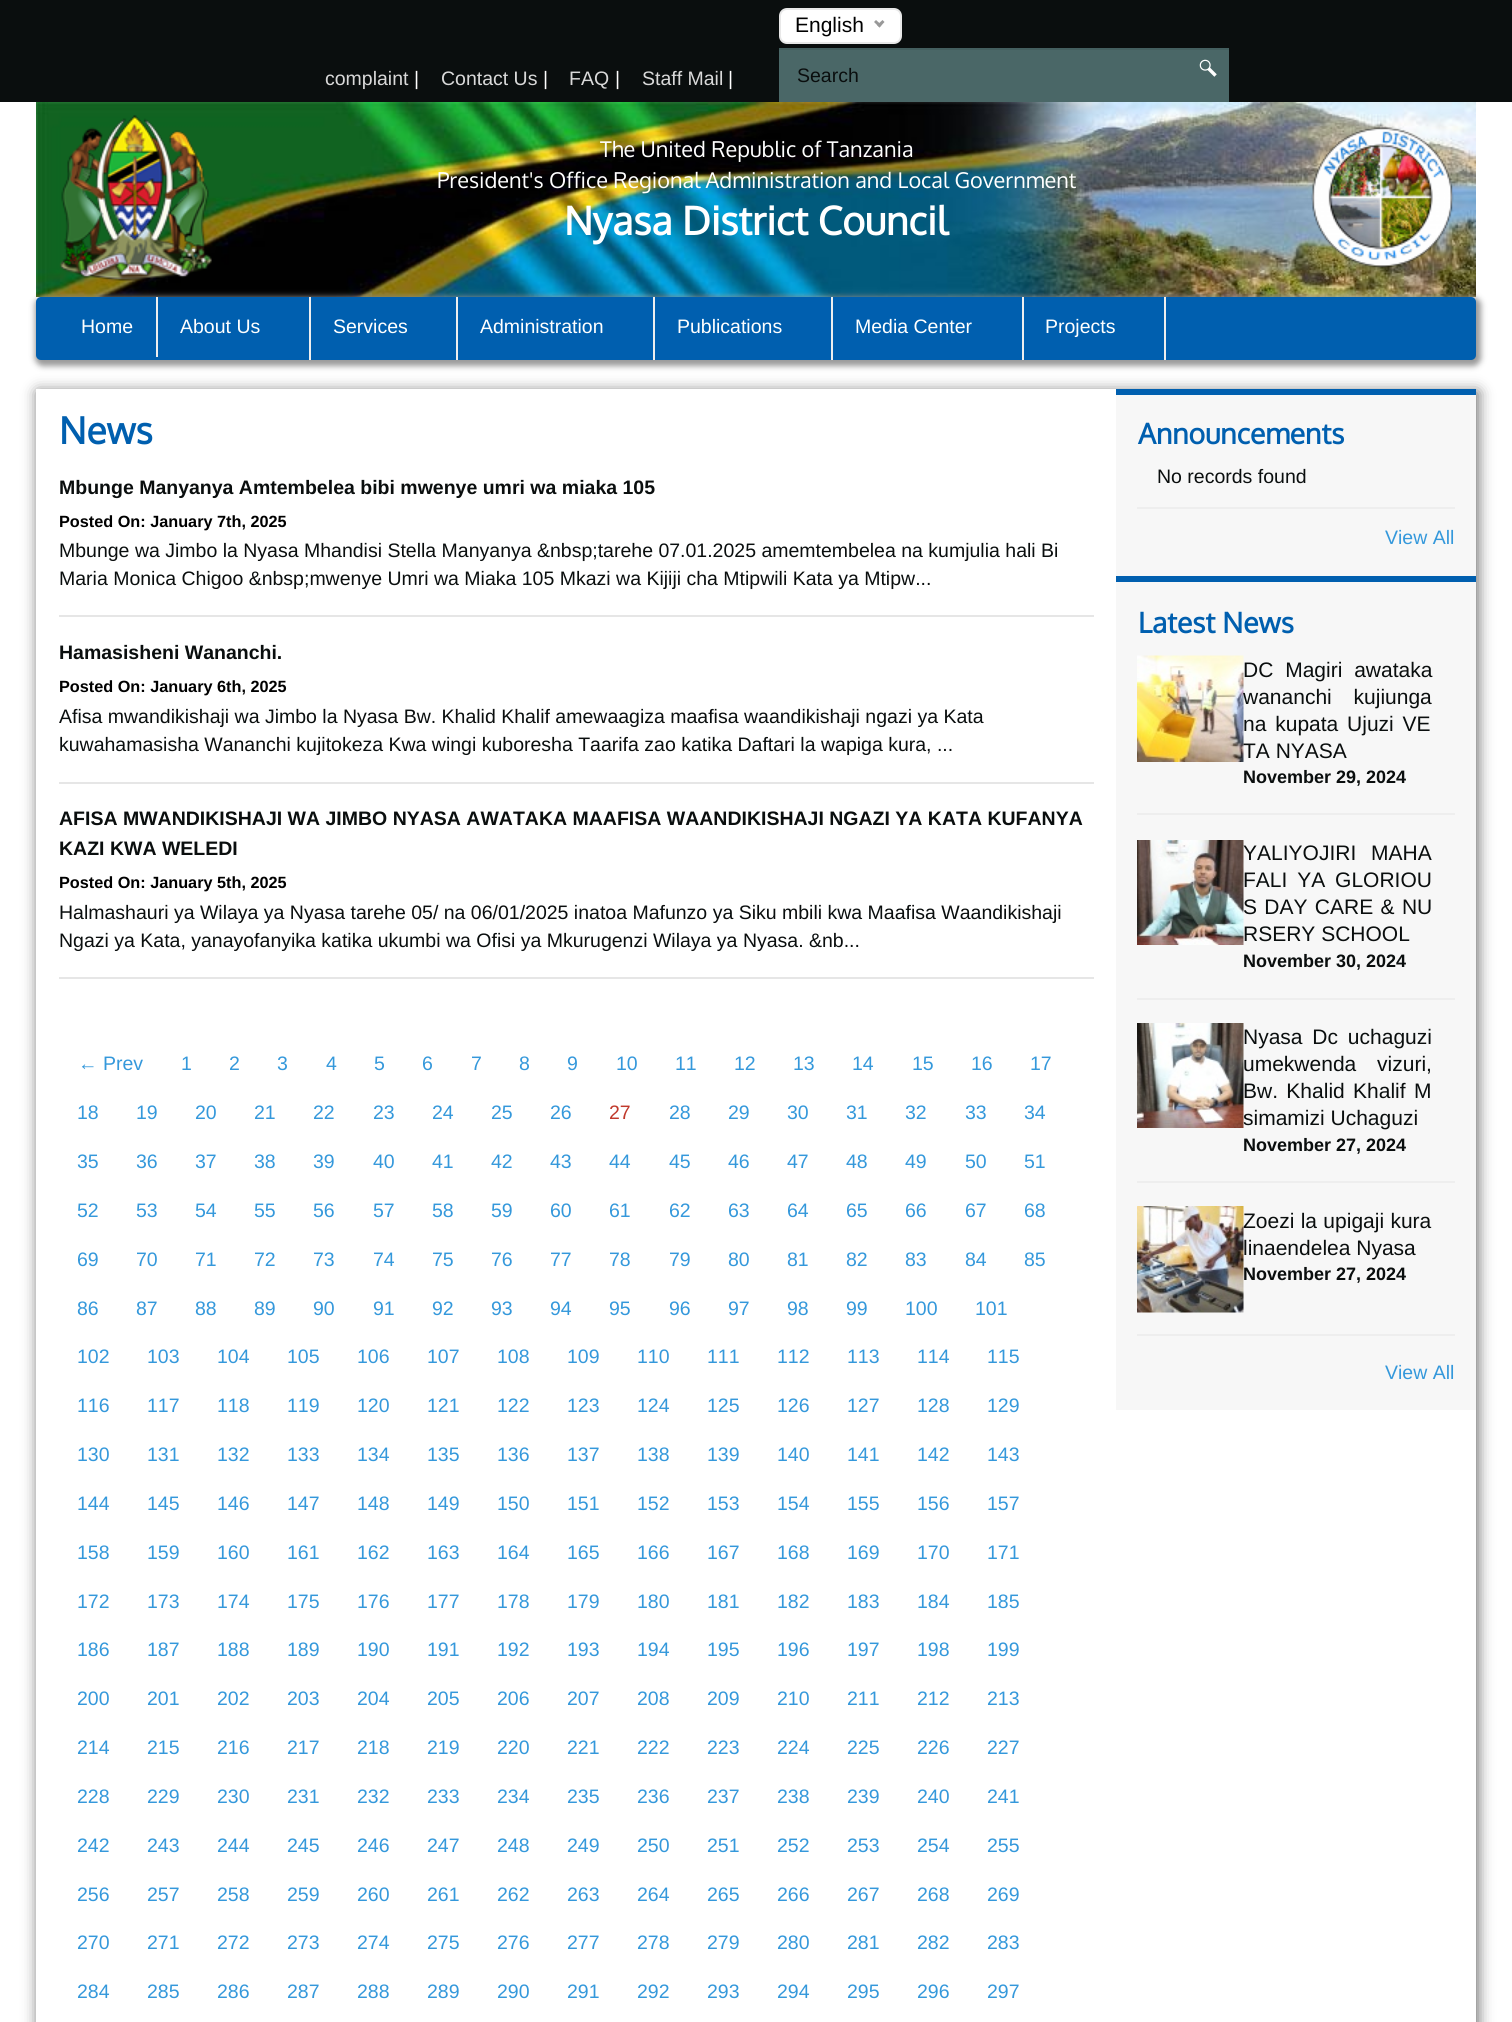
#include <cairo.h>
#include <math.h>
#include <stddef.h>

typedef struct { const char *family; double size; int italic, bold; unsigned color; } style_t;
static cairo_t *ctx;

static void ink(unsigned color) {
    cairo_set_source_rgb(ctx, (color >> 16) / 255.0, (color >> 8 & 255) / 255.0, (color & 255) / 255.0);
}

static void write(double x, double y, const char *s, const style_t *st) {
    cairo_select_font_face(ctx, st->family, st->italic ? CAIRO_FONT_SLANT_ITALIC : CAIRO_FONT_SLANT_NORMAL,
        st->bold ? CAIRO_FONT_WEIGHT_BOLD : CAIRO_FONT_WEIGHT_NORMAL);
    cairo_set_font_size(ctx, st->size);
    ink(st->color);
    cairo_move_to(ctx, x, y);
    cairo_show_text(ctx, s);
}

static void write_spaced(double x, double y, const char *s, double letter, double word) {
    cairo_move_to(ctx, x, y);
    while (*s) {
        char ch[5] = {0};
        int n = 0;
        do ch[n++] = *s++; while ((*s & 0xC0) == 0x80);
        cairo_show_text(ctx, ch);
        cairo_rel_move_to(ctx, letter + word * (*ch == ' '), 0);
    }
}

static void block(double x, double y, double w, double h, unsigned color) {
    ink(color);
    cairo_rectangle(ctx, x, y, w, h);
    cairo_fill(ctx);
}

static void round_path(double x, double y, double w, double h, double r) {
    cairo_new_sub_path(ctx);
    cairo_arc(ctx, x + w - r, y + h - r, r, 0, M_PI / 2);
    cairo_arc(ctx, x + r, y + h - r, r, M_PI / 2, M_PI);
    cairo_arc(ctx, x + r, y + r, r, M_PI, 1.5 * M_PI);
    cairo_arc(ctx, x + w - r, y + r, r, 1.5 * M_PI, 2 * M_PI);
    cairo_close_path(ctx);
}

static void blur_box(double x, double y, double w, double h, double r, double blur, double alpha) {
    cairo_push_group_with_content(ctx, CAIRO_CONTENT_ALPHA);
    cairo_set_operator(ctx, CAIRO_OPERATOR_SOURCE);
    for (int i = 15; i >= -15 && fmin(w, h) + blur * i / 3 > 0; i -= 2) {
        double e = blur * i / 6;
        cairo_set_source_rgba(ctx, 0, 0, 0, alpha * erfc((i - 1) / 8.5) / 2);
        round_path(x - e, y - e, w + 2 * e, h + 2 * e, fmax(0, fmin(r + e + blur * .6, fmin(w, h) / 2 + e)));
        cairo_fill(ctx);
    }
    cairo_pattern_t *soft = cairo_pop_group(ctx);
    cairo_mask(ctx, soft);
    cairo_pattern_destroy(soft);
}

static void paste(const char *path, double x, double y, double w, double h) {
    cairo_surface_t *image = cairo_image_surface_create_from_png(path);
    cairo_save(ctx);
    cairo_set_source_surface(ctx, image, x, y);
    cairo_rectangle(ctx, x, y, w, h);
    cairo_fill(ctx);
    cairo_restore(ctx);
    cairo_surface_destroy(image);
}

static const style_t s1 = {"Liberation Sans", 21, 0, 0, 0x000000};
static const style_t s2 = {"Liberation Sans", 19.5, 0, 0, 0xd9d9d9};
static const style_t s3 = {"Liberation Sans", 19.5, 0, 0, 0xffffff};
static const style_t s4 = {"Liberation Sans", 19.5, 0, 0, 0x0a0e0e};
static const style_t s5 = {"Oxygen", 21.7, 0, 0, 0xffffff};
static const style_t s6 = {"Oxygen", 39, 0, 1, 0xffffff};
static const style_t s7 = {"Oxygen", 37, 0, 1, 0x005faf};
static const style_t s8 = {"Liberation Sans", 19.5, 0, 1, 0x0a0e0e};
static const style_t s9 = {"Liberation Sans", 16.25, 0, 1, 0x000000};
static const style_t s10 = {"Liberation Sans", 19.5, 0, 0, 0x3498db};
static const style_t s11 = {"Liberation Sans", 19.5, 0, 0, 0xc0392b};
static const style_t s12 = {"Oxygen", 28.25, 0, 1, 0x005faf};
static const style_t s13 = {"Liberation Sans", 21, 0, 0, 0x0a0e0e};
static const style_t s14 = {"Liberation Sans", 18, 0, 1, 0x0a0e0e};

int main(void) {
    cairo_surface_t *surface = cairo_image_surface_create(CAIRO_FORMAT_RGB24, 1512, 2022);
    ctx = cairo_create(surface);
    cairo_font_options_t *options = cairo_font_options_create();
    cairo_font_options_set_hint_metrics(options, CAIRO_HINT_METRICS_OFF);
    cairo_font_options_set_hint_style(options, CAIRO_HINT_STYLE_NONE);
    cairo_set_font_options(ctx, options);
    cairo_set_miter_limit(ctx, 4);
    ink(0xffffff);
    cairo_paint(ctx);
    block(0, 0, 1512, 102, 0x0a0e0e);
    ink(0xffffff);
    round_path(780, 9, 121, 34, 7);
    cairo_fill_preserve(ctx);
    ink(0xe8e8e8);
    cairo_stroke(ctx);
    write(795, 32, "English", &s1);
    ink(0x999999);
    cairo_new_path(ctx);
    cairo_move_to(ctx, 882.5, 20);
    cairo_line_to(ctx, 884.5, 22);
    cairo_line_to(ctx, 879.5, 27.5);
    cairo_line_to(ctx, 877, 25);
    cairo_close_path(ctx);
    cairo_fill(ctx);
    cairo_new_path(ctx);
    cairo_move_to(ctx, 876, 20);
    cairo_line_to(ctx, 881.5, 25);
    cairo_line_to(ctx, 879.5, 27.5);
    cairo_line_to(ctx, 874, 22);
    cairo_close_path(ctx);
    cairo_fill(ctx);
    write(325, 85, "complaint", &s2);
    write(414, 85, "|", &s3);
    write(441, 85, "Contact Us", &s2);
    write(543, 85, "|", &s3);
    write(569, 85, "FAQ", &s2);
    write(615, 85, "|", &s3);
    write(642, 85, "Staff Mail", &s2);
    write(728, 85, "|", &s3);
    block(779, 50, 450, 52, 0x4a6767);
    block(779, 48, 450, 2, 0x445f5f);
    write(797, 82, "Search", &s4);
    paste("pic1.png", 1199, 59, 18, 18);
    paste("pic2.png", 36, 102, 1440, 195);
    paste("pic3.png", 59, 115, 153, 166);
    write(600, 157, "The United Republic of Tanzania", &s5);
    write(437, 188, "President's Office Regional Administration and Local Government", &s5);
    write(564, 235, "Nyasa District Council", &s6);
    paste("pic4.png", 1311, 127, 143, 141);
    ink(0x999999);
    blur_box(35, 297, 1446, 69, 8, 3, 1);
    ink(0x005faf);
    round_path(36, 297, 1440, 63, 5);
    cairo_fill(ctx);
    block(156, 297, 2, 60, 0xeeeeee);
    write(81, 333, "Home", &s3);
    block(309, 297, 2, 63, 0xeeeeee);
    write(180, 333, "About Us", &s3);
    block(456, 297, 2, 63, 0xeeeeee);
    write(333, 333, "Services", &s3);
    block(653, 297, 2, 63, 0xeeeeee);
    write(480, 333, "Administration", &s3);
    block(831, 297, 2, 63, 0xeeeeee);
    write(677, 333, "Publications", &s3);
    block(1022, 297, 2, 63, 0xeeeeee);
    write(855, 333, "Media Center", &s3);
    block(1164, 297, 2, 63, 0xeeeeee);
    write(1045, 333, "Projects", &s3);
    cairo_save(ctx);
    cairo_set_fill_rule(ctx, CAIRO_FILL_RULE_EVEN_ODD);
    cairo_new_path(ctx);
    cairo_move_to(ctx, 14, 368);
    cairo_line_to(ctx, 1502, 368);
    cairo_line_to(ctx, 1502, 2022);
    cairo_line_to(ctx, 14, 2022);
    cairo_close_path(ctx);
    cairo_move_to(ctx, 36, 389);
    cairo_line_to(ctx, 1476, 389);
    cairo_line_to(ctx, 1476, 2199);
    cairo_line_to(ctx, 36, 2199);
    cairo_close_path(ctx);
    cairo_clip(ctx);
    ink(0x323232);
    blur_box(38, 392, 1440, 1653, 0, 7.5, 0.75);
    cairo_restore(ctx);
    write(59, 444, "News", &s7);
    block(59, 615, 1035, 2, 0xe6e6e6);
    write(59, 494, "Mbunge Manyanya Amtembelea bibi mwenye umri wa miaka 105", &s8);
    write(59, 527, "Posted On: January 7th, 2025", &s9);
    write(59, 557, "Mbunge wa Jimbo la Nyasa Mhandisi Stella Manyanya &nbsp;tarehe 07.01.2025 amemtembelea na kumjulia hali Bi", &s4);
    write(59, 585, "Maria Monica Chigoo &nbsp;mwenye Umri wa Miaka 105 Mkazi wa Kijiji cha Mtipwili Kata ya Mtipw...", &s4);
    block(59, 782, 1035, 2, 0xe6e6e6);
    write(59, 659, "Hamasisheni Wananchi.", &s8);
    write(59, 692, "Posted On: January 6th, 2025", &s9);
    write(59, 723, "Afisa mwandikishaji wa Jimbo la Nyasa Bw. Khalid Khalif amewaagiza maafisa waandikishaji ngazi ya Kata", &s4);
    write(59, 751, "kuwahamasisha Wananchi kujitokeza Kwa wingi kuboresha Taarifa zao katika Daftari la wapiga kura, ...", &s4);
    block(59, 977, 1035, 2, 0xe6e6e6);
    write(59, 825, "AFISA MWANDIKISHAJI WA JIMBO NYASA AWATAKA MAAFISA WAANDIKISHAJI NGAZI YA KATA KUFANYA", &s8);
    write(59, 855, "KAZI KWA WELEDI", &s8);
    write(59, 888, "Posted On: January 5th, 2025", &s9);
    write(59, 919, "Halmashauri ya Wilaya ya Nyasa tarehe 05/ na 06/01/2025 inatoa Mafunzo ya Siku mbili kwa Maafisa Waandikishaji", &s4);
    write(59, 947, "Ngazi ya Kata, yanayofanyika katika ukumbi wa Ofisi ya Mkurugenzi Wilaya ya Nyasa. &nb...", &s4);
    write(78, 1070, "← Prev", &s10);
    write(181, 1070, "1", &s10);
    write(229, 1070, "2", &s10);
    write(277, 1070, "3", &s10);
    write(326, 1070, "4", &s10);
    write(374, 1070, "5", &s10);
    write(422, 1070, "6", &s10);
    write(471, 1070, "7", &s10);
    write(519, 1070, "8", &s10);
    write(567, 1070, "9", &s10);
    write(616, 1070, "10", &s10);
    write(675, 1070, "11", &s10);
    write(734, 1070, "12", &s10);
    write(793, 1070, "13", &s10);
    write(852, 1070, "14", &s10);
    write(912, 1070, "15", &s10);
    write(971, 1070, "16", &s10);
    write(1030, 1070, "17", &s10);
    write(77, 1119, "18", &s10);
    write(136, 1119, "19", &s10);
    write(195, 1119, "20", &s10);
    write(254, 1119, "21", &s10);
    write(313, 1119, "22", &s10);
    write(373, 1119, "23", &s10);
    write(432, 1119, "24", &s10);
    write(491, 1119, "25", &s10);
    write(550, 1119, "26", &s10);
    write(609, 1119, "27", &s11);
    write(669, 1119, "28", &s10);
    write(728, 1119, "29", &s10);
    write(787, 1119, "30", &s10);
    write(846, 1119, "31", &s10);
    write(905, 1119, "32", &s10);
    write(965, 1119, "33", &s10);
    write(1024, 1119, "34", &s10);
    write(77, 1168, "35", &s10);
    write(136, 1168, "36", &s10);
    write(195, 1168, "37", &s10);
    write(254, 1168, "38", &s10);
    write(313, 1168, "39", &s10);
    write(373, 1168, "40", &s10);
    write(432, 1168, "41", &s10);
    write(491, 1168, "42", &s10);
    write(550, 1168, "43", &s10);
    write(609, 1168, "44", &s10);
    write(669, 1168, "45", &s10);
    write(728, 1168, "46", &s10);
    write(787, 1168, "47", &s10);
    write(846, 1168, "48", &s10);
    write(905, 1168, "49", &s10);
    write(965, 1168, "50", &s10);
    write(1024, 1168, "51", &s10);
    write(77, 1217, "52", &s10);
    write(136, 1217, "53", &s10);
    write(195, 1217, "54", &s10);
    write(254, 1217, "55", &s10);
    write(313, 1217, "56", &s10);
    write(373, 1217, "57", &s10);
    write(432, 1217, "58", &s10);
    write(491, 1217, "59", &s10);
    write(550, 1217, "60", &s10);
    write(609, 1217, "61", &s10);
    write(669, 1217, "62", &s10);
    write(728, 1217, "63", &s10);
    write(787, 1217, "64", &s10);
    write(846, 1217, "65", &s10);
    write(905, 1217, "66", &s10);
    write(965, 1217, "67", &s10);
    write(1024, 1217, "68", &s10);
    write(77, 1266, "69", &s10);
    write(136, 1266, "70", &s10);
    write(195, 1266, "71", &s10);
    write(254, 1266, "72", &s10);
    write(313, 1266, "73", &s10);
    write(373, 1266, "74", &s10);
    write(432, 1266, "75", &s10);
    write(491, 1266, "76", &s10);
    write(550, 1266, "77", &s10);
    write(609, 1266, "78", &s10);
    write(669, 1266, "79", &s10);
    write(728, 1266, "80", &s10);
    write(787, 1266, "81", &s10);
    write(846, 1266, "82", &s10);
    write(905, 1266, "83", &s10);
    write(965, 1266, "84", &s10);
    write(1024, 1266, "85", &s10);
    write(77, 1315, "86", &s10);
    write(136, 1315, "87", &s10);
    write(195, 1315, "88", &s10);
    write(254, 1315, "89", &s10);
    write(313, 1315, "90", &s10);
    write(373, 1315, "91", &s10);
    write(432, 1315, "92", &s10);
    write(491, 1315, "93", &s10);
    write(550, 1315, "94", &s10);
    write(609, 1315, "95", &s10);
    write(669, 1315, "96", &s10);
    write(728, 1315, "97", &s10);
    write(787, 1315, "98", &s10);
    write(846, 1315, "99", &s10);
    write(905, 1315, "100", &s10);
    write(975, 1315, "101", &s10);
    write(77, 1363, "102", &s10);
    write(147, 1363, "103", &s10);
    write(217, 1363, "104", &s10);
    write(287, 1363, "105", &s10);
    write(357, 1363, "106", &s10);
    write(427, 1363, "107", &s10);
    write(497, 1363, "108", &s10);
    write(567, 1363, "109", &s10);
    write(637, 1363, "110", &s10);
    write(707, 1363, "111", &s10);
    write(777, 1363, "112", &s10);
    write(847, 1363, "113", &s10);
    write(917, 1363, "114", &s10);
    write(987, 1363, "115", &s10);
    write(77, 1412, "116", &s10);
    write(147, 1412, "117", &s10);
    write(217, 1412, "118", &s10);
    write(287, 1412, "119", &s10);
    write(357, 1412, "120", &s10);
    write(427, 1412, "121", &s10);
    write(497, 1412, "122", &s10);
    write(567, 1412, "123", &s10);
    write(637, 1412, "124", &s10);
    write(707, 1412, "125", &s10);
    write(777, 1412, "126", &s10);
    write(847, 1412, "127", &s10);
    write(917, 1412, "128", &s10);
    write(987, 1412, "129", &s10);
    write(77, 1461, "130", &s10);
    write(147, 1461, "131", &s10);
    write(217, 1461, "132", &s10);
    write(287, 1461, "133", &s10);
    write(357, 1461, "134", &s10);
    write(427, 1461, "135", &s10);
    write(497, 1461, "136", &s10);
    write(567, 1461, "137", &s10);
    write(637, 1461, "138", &s10);
    write(707, 1461, "139", &s10);
    write(777, 1461, "140", &s10);
    write(847, 1461, "141", &s10);
    write(917, 1461, "142", &s10);
    write(987, 1461, "143", &s10);
    write(77, 1510, "144", &s10);
    write(147, 1510, "145", &s10);
    write(217, 1510, "146", &s10);
    write(287, 1510, "147", &s10);
    write(357, 1510, "148", &s10);
    write(427, 1510, "149", &s10);
    write(497, 1510, "150", &s10);
    write(567, 1510, "151", &s10);
    write(637, 1510, "152", &s10);
    write(707, 1510, "153", &s10);
    write(777, 1510, "154", &s10);
    write(847, 1510, "155", &s10);
    write(917, 1510, "156", &s10);
    write(987, 1510, "157", &s10);
    write(77, 1559, "158", &s10);
    write(147, 1559, "159", &s10);
    write(217, 1559, "160", &s10);
    write(287, 1559, "161", &s10);
    write(357, 1559, "162", &s10);
    write(427, 1559, "163", &s10);
    write(497, 1559, "164", &s10);
    write(567, 1559, "165", &s10);
    write(637, 1559, "166", &s10);
    write(707, 1559, "167", &s10);
    write(777, 1559, "168", &s10);
    write(847, 1559, "169", &s10);
    write(917, 1559, "170", &s10);
    write(987, 1559, "171", &s10);
    write(77, 1608, "172", &s10);
    write(147, 1608, "173", &s10);
    write(217, 1608, "174", &s10);
    write(287, 1608, "175", &s10);
    write(357, 1608, "176", &s10);
    write(427, 1608, "177", &s10);
    write(497, 1608, "178", &s10);
    write(567, 1608, "179", &s10);
    write(637, 1608, "180", &s10);
    write(707, 1608, "181", &s10);
    write(777, 1608, "182", &s10);
    write(847, 1608, "183", &s10);
    write(917, 1608, "184", &s10);
    write(987, 1608, "185", &s10);
    write(77, 1656, "186", &s10);
    write(147, 1656, "187", &s10);
    write(217, 1656, "188", &s10);
    write(287, 1656, "189", &s10);
    write(357, 1656, "190", &s10);
    write(427, 1656, "191", &s10);
    write(497, 1656, "192", &s10);
    write(567, 1656, "193", &s10);
    write(637, 1656, "194", &s10);
    write(707, 1656, "195", &s10);
    write(777, 1656, "196", &s10);
    write(847, 1656, "197", &s10);
    write(917, 1656, "198", &s10);
    write(987, 1656, "199", &s10);
    write(77, 1705, "200", &s10);
    write(147, 1705, "201", &s10);
    write(217, 1705, "202", &s10);
    write(287, 1705, "203", &s10);
    write(357, 1705, "204", &s10);
    write(427, 1705, "205", &s10);
    write(497, 1705, "206", &s10);
    write(567, 1705, "207", &s10);
    write(637, 1705, "208", &s10);
    write(707, 1705, "209", &s10);
    write(777, 1705, "210", &s10);
    write(847, 1705, "211", &s10);
    write(917, 1705, "212", &s10);
    write(987, 1705, "213", &s10);
    write(77, 1754, "214", &s10);
    write(147, 1754, "215", &s10);
    write(217, 1754, "216", &s10);
    write(287, 1754, "217", &s10);
    write(357, 1754, "218", &s10);
    write(427, 1754, "219", &s10);
    write(497, 1754, "220", &s10);
    write(567, 1754, "221", &s10);
    write(637, 1754, "222", &s10);
    write(707, 1754, "223", &s10);
    write(777, 1754, "224", &s10);
    write(847, 1754, "225", &s10);
    write(917, 1754, "226", &s10);
    write(987, 1754, "227", &s10);
    write(77, 1803, "228", &s10);
    write(147, 1803, "229", &s10);
    write(217, 1803, "230", &s10);
    write(287, 1803, "231", &s10);
    write(357, 1803, "232", &s10);
    write(427, 1803, "233", &s10);
    write(497, 1803, "234", &s10);
    write(567, 1803, "235", &s10);
    write(637, 1803, "236", &s10);
    write(707, 1803, "237", &s10);
    write(777, 1803, "238", &s10);
    write(847, 1803, "239", &s10);
    write(917, 1803, "240", &s10);
    write(987, 1803, "241", &s10);
    write(77, 1852, "242", &s10);
    write(147, 1852, "243", &s10);
    write(217, 1852, "244", &s10);
    write(287, 1852, "245", &s10);
    write(357, 1852, "246", &s10);
    write(427, 1852, "247", &s10);
    write(497, 1852, "248", &s10);
    write(567, 1852, "249", &s10);
    write(637, 1852, "250", &s10);
    write(707, 1852, "251", &s10);
    write(777, 1852, "252", &s10);
    write(847, 1852, "253", &s10);
    write(917, 1852, "254", &s10);
    write(987, 1852, "255", &s10);
    write(77, 1901, "256", &s10);
    write(147, 1901, "257", &s10);
    write(217, 1901, "258", &s10);
    write(287, 1901, "259", &s10);
    write(357, 1901, "260", &s10);
    write(427, 1901, "261", &s10);
    write(497, 1901, "262", &s10);
    write(567, 1901, "263", &s10);
    write(637, 1901, "264", &s10);
    write(707, 1901, "265", &s10);
    write(777, 1901, "266", &s10);
    write(847, 1901, "267", &s10);
    write(917, 1901, "268", &s10);
    write(987, 1901, "269", &s10);
    write(77, 1949, "270", &s10);
    write(147, 1949, "271", &s10);
    write(217, 1949, "272", &s10);
    write(287, 1949, "273", &s10);
    write(357, 1949, "274", &s10);
    write(427, 1949, "275", &s10);
    write(497, 1949, "276", &s10);
    write(567, 1949, "277", &s10);
    write(637, 1949, "278", &s10);
    write(707, 1949, "279", &s10);
    write(777, 1949, "280", &s10);
    write(847, 1949, "281", &s10);
    write(917, 1949, "282", &s10);
    write(987, 1949, "283", &s10);
    write(77, 1998, "284", &s10);
    write(147, 1998, "285", &s10);
    write(217, 1998, "286", &s10);
    write(287, 1998, "287", &s10);
    write(357, 1998, "288", &s10);
    write(427, 1998, "289", &s10);
    write(497, 1998, "290", &s10);
    write(567, 1998, "291", &s10);
    write(637, 1998, "292", &s10);
    write(707, 1998, "293", &s10);
    write(777, 1998, "294", &s10);
    write(847, 1998, "295", &s10);
    write(917, 1998, "296", &s10);
    write(987, 1998, "297", &s10);
    block(1116, 395, 360, 1015, 0xf7f7f7);
    block(1116, 389, 360, 6, 0x005faf);
    write(1138, 444, "Announcements", &s12);
    block(1137, 507, 318, 2, 0xeeeeee);
    write(1157, 483, "No records found", &s4);
    write(1385, 544, "View All", &s10);
    block(1116, 576, 360, 6, 0x005faf);
    write(1138, 633, "Latest News", &s12);
    block(1137, 813, 318, 2, 0xeeeeee);
    paste("pic5.png", 1137, 655, 107, 107);
    cairo_select_font_face(ctx, "Liberation Sans", CAIRO_FONT_SLANT_NORMAL, CAIRO_FONT_WEIGHT_NORMAL);
    cairo_set_font_size(ctx, 21);
    ink(0x0a0e0e);
    write_spaced(1243, 677, "DC Magiri awataka", 0, 6);
    write_spaced(1243, 704, "wananchi kujiunga", 0, 16);
    write_spaced(1243, 731, "na kupata Ujuzi VE", 0, 3);
    write(1243, 758, "TA NYASA", &s13);
    write(1243, 783, "November 29, 2024", &s14);
    block(1137, 998, 318, 2, 0xeeeeee);
    paste("pic6.png", 1137, 840, 107, 105);
    cairo_select_font_face(ctx, "Liberation Sans", CAIRO_FONT_SLANT_NORMAL, CAIRO_FONT_WEIGHT_NORMAL);
    cairo_set_font_size(ctx, 21);
    ink(0x0a0e0e);
    write_spaced(1243, 860, "YALIYOJIRI MAHA", 0, 9);
    write_spaced(1243, 887, "FALI YA GLORIOU", 0, 4);
    write_spaced(1243, 914, "S DAY CARE & NU", 0, 1.5);
    write(1243, 941, "RSERY SCHOOL", &s13);
    write(1243, 967, "November 30, 2024", &s14);
    block(1137, 1181, 318, 2, 0xeeeeee);
    paste("pic7.png", 1137, 1023, 107, 105);
    cairo_select_font_face(ctx, "Liberation Sans", CAIRO_FONT_SLANT_NORMAL, CAIRO_FONT_WEIGHT_NORMAL);
    cairo_set_font_size(ctx, 21);
    ink(0x0a0e0e);
    write_spaced(1243, 1044, "Nyasa Dc uchaguzi", 0, 4);
    write_spaced(1243, 1071, "umekwenda vizuri,", 0, 15);
    write_spaced(1243, 1098, "Bw. Khalid Khalif M", 0, 2.5);
    write(1243, 1125, "simamizi Uchaguzi", &s13);
    write(1243, 1151, "November 27, 2024", &s14);
    block(1137, 1334, 318, 2, 0xeeeeee);
    paste("pic8.png", 1137, 1206, 107, 107);
    cairo_select_font_face(ctx, "Liberation Sans", CAIRO_FONT_SLANT_NORMAL, CAIRO_FONT_WEIGHT_NORMAL);
    cairo_set_font_size(ctx, 21);
    ink(0x0a0e0e);
    write_spaced(1243, 1228, "Zoezi la upigaji kura", 0, 0.5);
    write(1243, 1255, "linaendelea Nyasa", &s13);
    write(1243, 1280, "November 27, 2024", &s14);
    write(1385, 1379, "View All", &s10);
    cairo_surface_write_to_png(surface, "screenshot.png");
    cairo_font_options_destroy(options);
    cairo_destroy(ctx);
    cairo_surface_destroy(surface);
    return 0;
}
